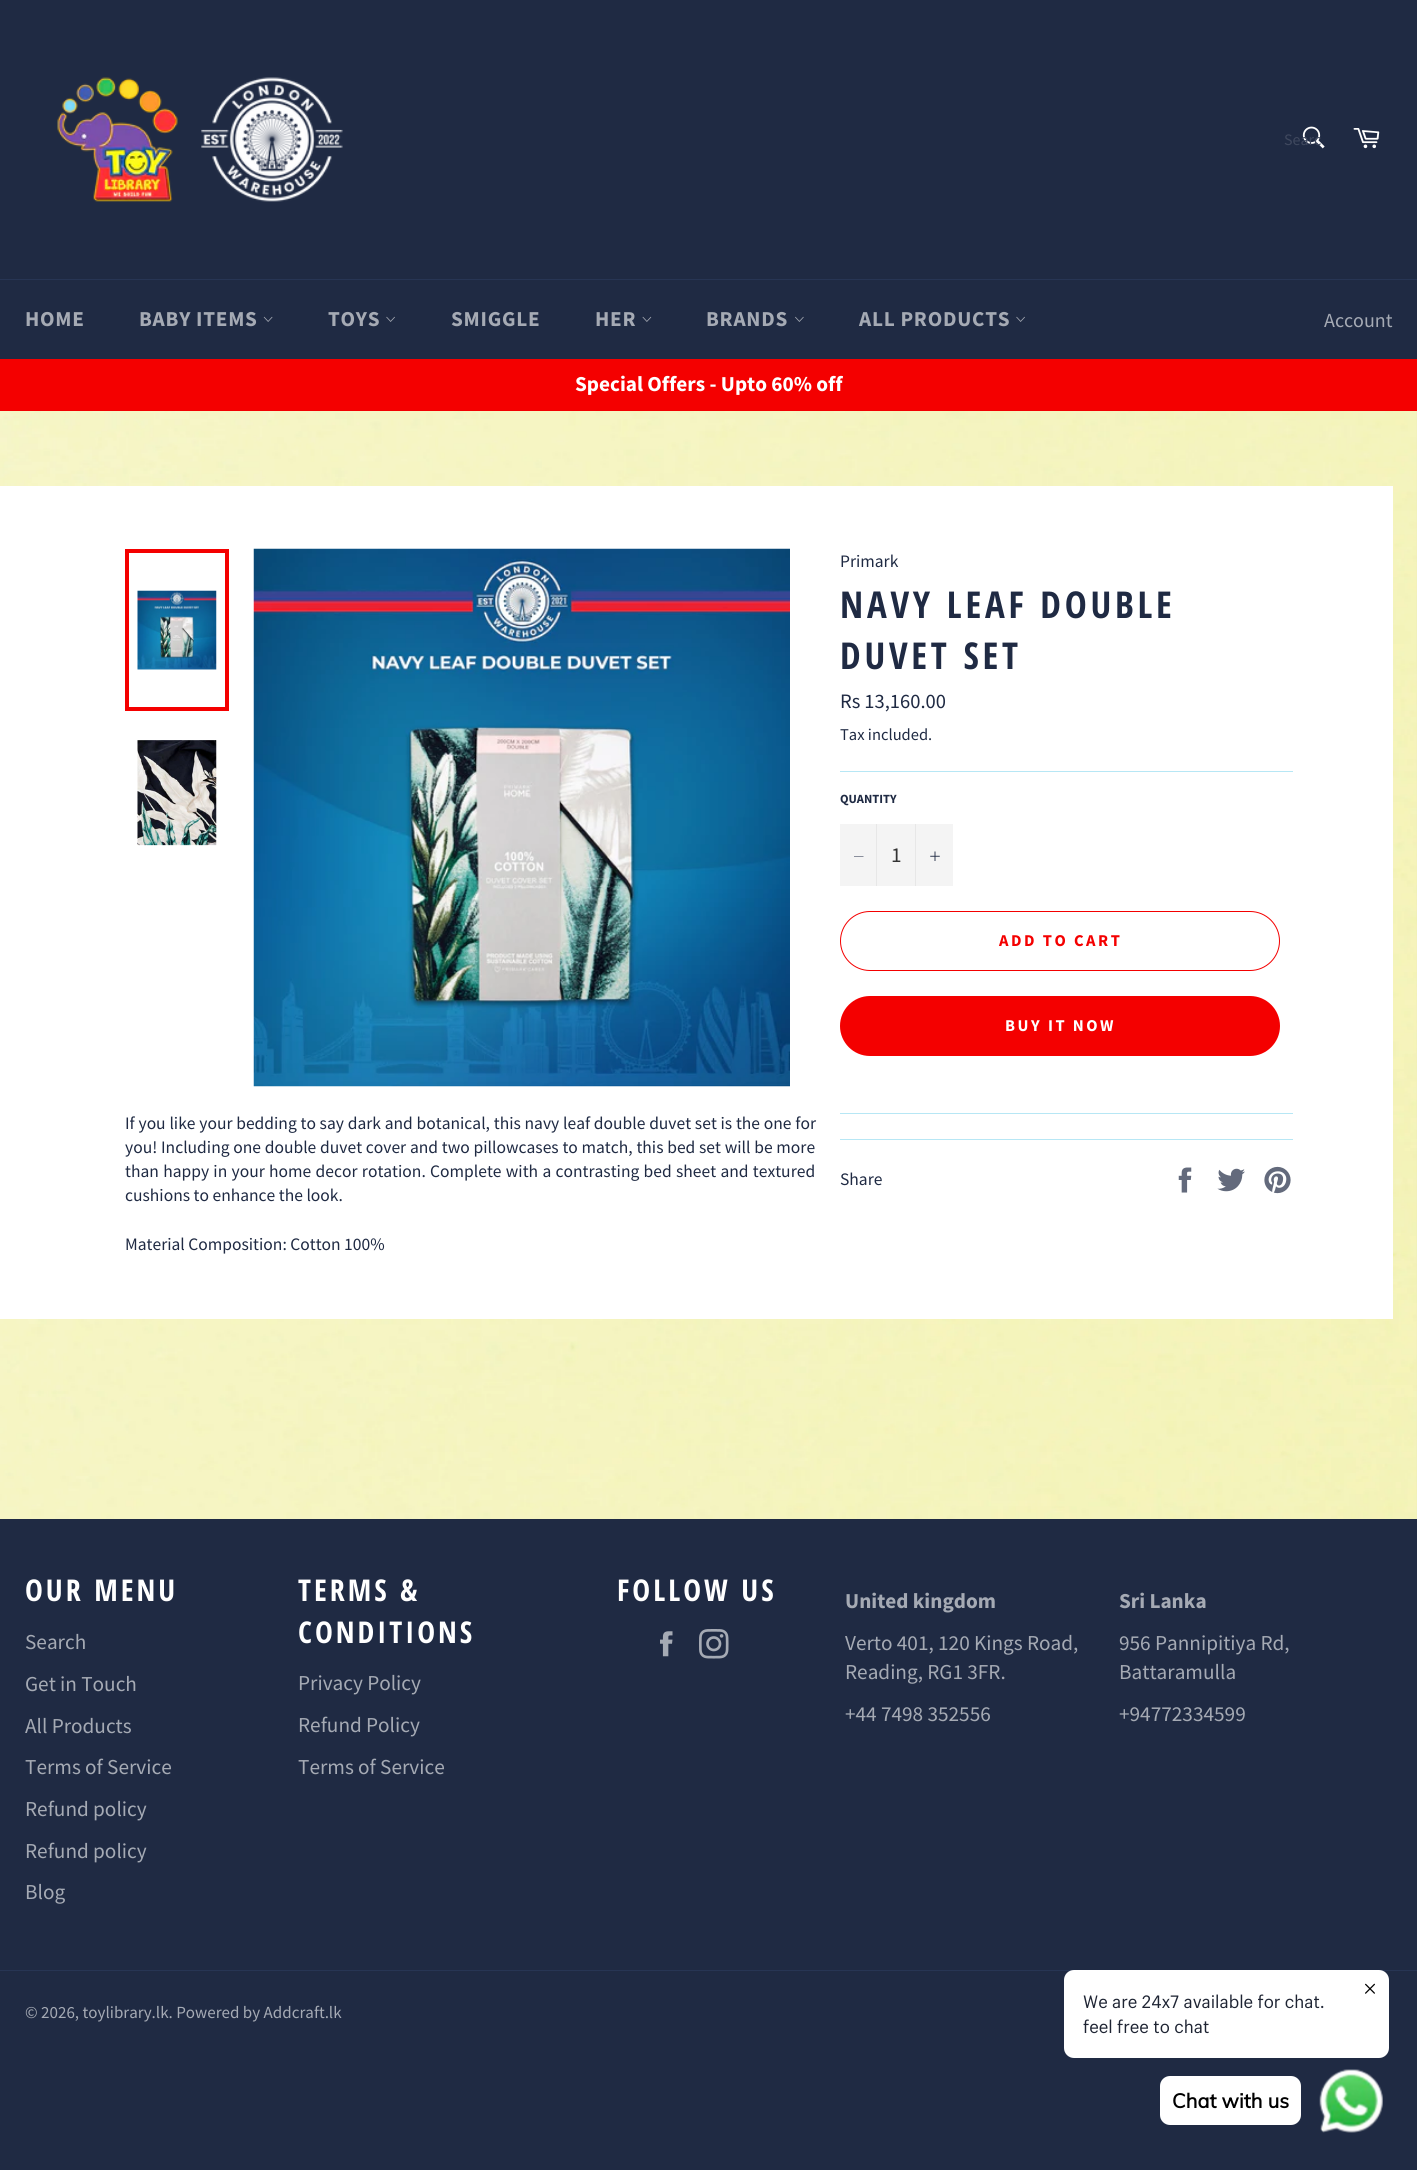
#include <cairo.h>
#include <math.h>
#include <stddef.h>

typedef struct { const char *family; double size; int italic, bold; unsigned color; } style_t;
static cairo_t *ctx;

static void ink(unsigned color) {
    cairo_set_source_rgb(ctx, (color >> 16) / 255.0, (color >> 8 & 255) / 255.0, (color & 255) / 255.0);
}

static void write(double x, double y, const char *s, const style_t *st) {
    cairo_select_font_face(ctx, st->family, st->italic ? CAIRO_FONT_SLANT_ITALIC : CAIRO_FONT_SLANT_NORMAL,
        st->bold ? CAIRO_FONT_WEIGHT_BOLD : CAIRO_FONT_WEIGHT_NORMAL);
    cairo_set_font_size(ctx, st->size);
    ink(st->color);
    cairo_move_to(ctx, x, y);
    cairo_show_text(ctx, s);
}

static void write_spaced(double x, double y, const char *s, double letter, double word) {
    cairo_move_to(ctx, x, y);
    while (*s) {
        char ch[5] = {0};
        int n = 0;
        do ch[n++] = *s++; while ((*s & 0xC0) == 0x80);
        cairo_show_text(ctx, ch);
        cairo_rel_move_to(ctx, letter + word * (*ch == ' '), 0);
    }
}

static void block(double x, double y, double w, double h, unsigned color) {
    ink(color);
    cairo_rectangle(ctx, x, y, w, h);
    cairo_fill(ctx);
}

static void round_path(double x, double y, double w, double h, double r) {
    cairo_new_sub_path(ctx);
    cairo_arc(ctx, x + w - r, y + h - r, r, 0, M_PI / 2);
    cairo_arc(ctx, x + r, y + h - r, r, M_PI / 2, M_PI);
    cairo_arc(ctx, x + r, y + r, r, M_PI, 1.5 * M_PI);
    cairo_arc(ctx, x + w - r, y + r, r, 1.5 * M_PI, 2 * M_PI);
    cairo_close_path(ctx);
}

static void paste(const char *path, double x, double y, double w, double h) {
    cairo_surface_t *image = cairo_image_surface_create_from_png(path);
    cairo_save(ctx);
    cairo_set_source_surface(ctx, image, x, y);
    cairo_rectangle(ctx, x, y, w, h);
    cairo_fill(ctx);
    cairo_restore(ctx);
    cairo_surface_destroy(image);
}

static const style_t s1 = {"Source Sans Pro", 16, 0, 0, 0x3f485e};
static const style_t s2 = {"Source Sans Pro", 20, 0, 0, 0xa5aab4};
static const style_t s3 = {"Source Sans Pro", 21.25, 0, 1, 0xffffff};
static const style_t s4 = {"Source Sans Pro", 17.5, 0, 0, 0x1f2a43};
static const style_t s5 = {"Source Sans Pro", 20.5, 0, 0, 0x1f2a43};
static const style_t s6 = {"Source Sans Pro", 16.5, 0, 0, 0x1f2a43};
static const style_t s7 = {"Source Sans Pro", 12.5, 0, 1, 0x1f2a43};
static const style_t s8 = {"Source Sans Pro", 21.25, 0, 0, 0x333333};
static const style_t s9 = {"Source Sans Pro", 21.25, 0, 0, 0xa5aab4};
static const style_t s10 = {"Source Sans Pro", 21.25, 0, 1, 0xa5aab4};
static const style_t s11 = {"Source Sans Pro", 17, 0, 0, 0xa5aab4};
static const style_t s12 = {"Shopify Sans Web", 17.5, 0, 0, 0x1e2433};
static const style_t s13 = {"Muli", 20, 0, 1, 0x000000};

int main(void) {
    cairo_surface_t *surface = cairo_image_surface_create(CAIRO_FORMAT_RGB24, 1417, 2170);
    ctx = cairo_create(surface);
    cairo_font_options_t *options = cairo_font_options_create();
    cairo_font_options_set_hint_metrics(options, CAIRO_HINT_METRICS_OFF);
    cairo_font_options_set_hint_style(options, CAIRO_HINT_STYLE_NONE);
    cairo_set_font_options(ctx, options);
    cairo_set_miter_limit(ctx, 4);
    ink(0x1f2a43);
    cairo_paint(ctx);
    paste("pic1.png", 57, 77, 286, 125);
    paste("pic2.png", 1302, 126, 23, 23);
    write(1284, 145, "Searc", &s1);
    paste("pic3.png", 1353, 128, 27, 21);
    block(0, 279, 1417, 1, 0x273554);
    cairo_select_font_face(ctx, "Source Sans Pro", CAIRO_FONT_SLANT_NORMAL, CAIRO_FONT_WEIGHT_BOLD);
    cairo_set_font_size(ctx, 21.25);
    ink(0xa5aab4);
    write_spaced(25, 326, "HOME", 0.75, 0);
    write_spaced(139, 326, "BABY ITEMS", 0.75, 0);
    paste("pic4.png", 263, 316, 10, 6);
    write_spaced(328, 326, "TOYS", 0.75, 0);
    paste("pic5.png", 386, 316, 9, 6);
    write_spaced(451, 326, "SMIGGLE", 0.75, 0);
    write_spaced(595, 326, "HER", 0.75, 0);
    paste("pic6.png", 642, 316, 10, 6);
    write_spaced(706, 326, "BRANDS", 0.75, 0);
    paste("pic7.png", 795, 316, 9, 6);
    write_spaced(859, 326, "ALL PRODUCTS", 0.75, 0);
    paste("pic5.png", 1016, 316, 9, 6);
    write(1324, 327, "Account", &s2);
    block(0, 359, 1417, 52, 0xf40000);
    write(575, 391, "Special Offers - Upto 60% off", &s3);
    paste("pic8.png", 0, 411, 1417, 1108);
    block(0, 486, 1393, 833, 0xffffff);
    paste("pic9.png", 137, 590, 80, 80);
    cairo_rectangle(ctx, 127, 551, 100, 158);
    ink(0xf40000);
    cairo_set_line_width(ctx, 4);
    cairo_stroke(ctx);
    paste("pic10.png", 137, 740, 80, 106);
    paste("pic11.png", 253, 548, 537, 539);
    cairo_select_font_face(ctx, "Source Sans Pro", CAIRO_FONT_SLANT_NORMAL, CAIRO_FONT_WEIGHT_NORMAL);
    cairo_set_font_size(ctx, 17.5);
    ink(0x1f2a43);
    write_spaced(125, 1129, "If you like your bedding to say dark and botanical, this navy leaf double duvet set is the one for", 0, 0.25);
    write_spaced(125, 1153, "you! Including one double duvet cover and two pillowcases to match, this bed set will be more", 0, 0.25);
    write_spaced(125, 1177, "than happy in your home decor rotation. Complete with a contrasting bed sheet and textured", 0, 0.8);
    write(125, 1201, "cushions to enhance the look.", &s4);
    write(125, 1250, "Material Composition: Cotton 100%", &s4);
    write(840, 567, "Primark", &s4);
    cairo_select_font_face(ctx, "Open Sans Condensed", CAIRO_FONT_SLANT_NORMAL, CAIRO_FONT_WEIGHT_BOLD);
    cairo_set_font_size(ctx, 37);
    write_spaced(840, 618, "NAVY LEAF DOUBLE", 3.75, 0);
    write_spaced(840, 669, "DUVET SET", 3.75, 0);
    write(840, 708, "Rs 13,160.00", &s5);
    write(840, 740, "Tax included.", &s6);
    block(840, 771, 453, 1, 0xb7e7f5);
    write(840, 803, "QUANTITY", &s7);
    block(840, 824, 113, 62, 0xf4f4f4);
    block(876, 824, 1, 62, 0xe7e7e7);
    ink(0x1f2a43);
    cairo_set_fill_rule(ctx, CAIRO_FILL_RULE_EVEN_ODD);
    cairo_new_path(ctx);
    cairo_move_to(ctx, 863.5, 856);
    cairo_line_to(ctx, 863.5, 856.5);
    cairo_line_to(ctx, 854, 856.5);
    cairo_line_to(ctx, 854, 856);
    cairo_close_path(ctx);
    cairo_fill(ctx);
    write(891, 862, "1", &s8);
    block(915, 824, 1, 62, 0xe7e7e7);
    paste("pic12.png", 930, 851, 10, 10);
    round_path(840.5, 911.5, 439, 59, 29.5);
    ink(0xf40000);
    cairo_set_line_width(ctx, 1);
    cairo_stroke(ctx);
    cairo_select_font_face(ctx, "Source Sans Pro", CAIRO_FONT_SLANT_NORMAL, CAIRO_FONT_WEIGHT_BOLD);
    cairo_set_font_size(ctx, 16.5);
    write_spaced(999, 946, "ADD TO CART", 2.5, 0);
    round_path(840, 996, 440, 60, 30);
    cairo_fill(ctx);
    ink(0xffffff);
    write_spaced(1005, 1031, "BUY IT NOW", 2.5, 0);
    block(840, 1113, 453, 1, 0xb7e7f5);
    block(840, 1139, 453, 1, 0xb7e7f5);
    write(840, 1185, "Share", &s4);
    paste("pic13.png", 1178, 1167, 14, 26);
    paste("pic14.png", 1217, 1168, 28, 24);
    paste("pic15.png", 1264, 1166, 27, 28);
    cairo_select_font_face(ctx, "Open Sans Condensed", CAIRO_FONT_SLANT_NORMAL, CAIRO_FONT_WEIGHT_BOLD);
    cairo_set_font_size(ctx, 30);
    ink(0xffffff);
    write_spaced(25, 1601, "OUR MENU", 3, 0);
    write(25, 1649, "Search", &s9);
    write(25, 1691, "Get in Touch", &s9);
    write(25, 1733, "All Products", &s9);
    write(25, 1774, "Terms of Service", &s9);
    write(25, 1816, "Refund policy", &s9);
    write(25, 1858, "Refund policy", &s9);
    write(25, 1899, "Blog", &s9);
    cairo_select_font_face(ctx, "Open Sans Condensed", CAIRO_FONT_SLANT_NORMAL, CAIRO_FONT_WEIGHT_BOLD);
    cairo_set_font_size(ctx, 30);
    ink(0xffffff);
    write_spaced(298, 1601, "TERMS &", 3, 0);
    write_spaced(298, 1643, "CONDITIONS", 3, 0);
    write(298, 1690, "Privacy Policy", &s9);
    write(298, 1732, "Refund Policy", &s9);
    write(298, 1774, "Terms of Service", &s9);
    cairo_select_font_face(ctx, "Open Sans Condensed", CAIRO_FONT_SLANT_NORMAL, CAIRO_FONT_WEIGHT_BOLD);
    cairo_set_font_size(ctx, 30);
    ink(0xffffff);
    write_spaced(617, 1601, "FOLLOW US", 3, 0);
    paste("pic16.png", 660, 1631, 13, 26);
    paste("pic17.png", 699, 1629, 30, 30);
    write(845, 1608, "United kingdom", &s10);
    write(845, 1650, "Verto 401, 120 Kings Road,", &s9);
    write(845, 1679, "Reading, RG1 3FR.", &s9);
    write(845, 1721, "+44 7498 352556", &s9);
    write(1119, 1608, "Sri Lanka", &s10);
    write(1119, 1650, "956 Pannipitiya Rd,", &s9);
    write(1119, 1679, "Battaramulla", &s9);
    write(1119, 1721, "+94772334599", &s9);
    block(0, 1970, 1417, 1, 0x273554);
    write(25, 2018, "© 2026, toylibrary.lk. Powered by Addcraft.lk", &s11);
    ink(0xffffff);
    round_path(1064, 1970, 325, 88, 10);
    cairo_fill(ctx);
    paste("pic18.png", 1365, 1983, 10, 11);
    write(1083, 2008, "We are 24x7 available for chat.", &s12);
    write(1083, 2033, "feel free to chat", &s12);
    paste("pic19.png", 1319, 2069, 64, 64);
    ink(0xffffff);
    round_path(1160, 2076, 141, 49, 10);
    cairo_fill(ctx);
    write(1172, 2108, "Chat with us", &s13);
    cairo_surface_write_to_png(surface, "screenshot.png");
    cairo_font_options_destroy(options);
    cairo_destroy(ctx);
    cairo_surface_destroy(surface);
    return 0;
}
